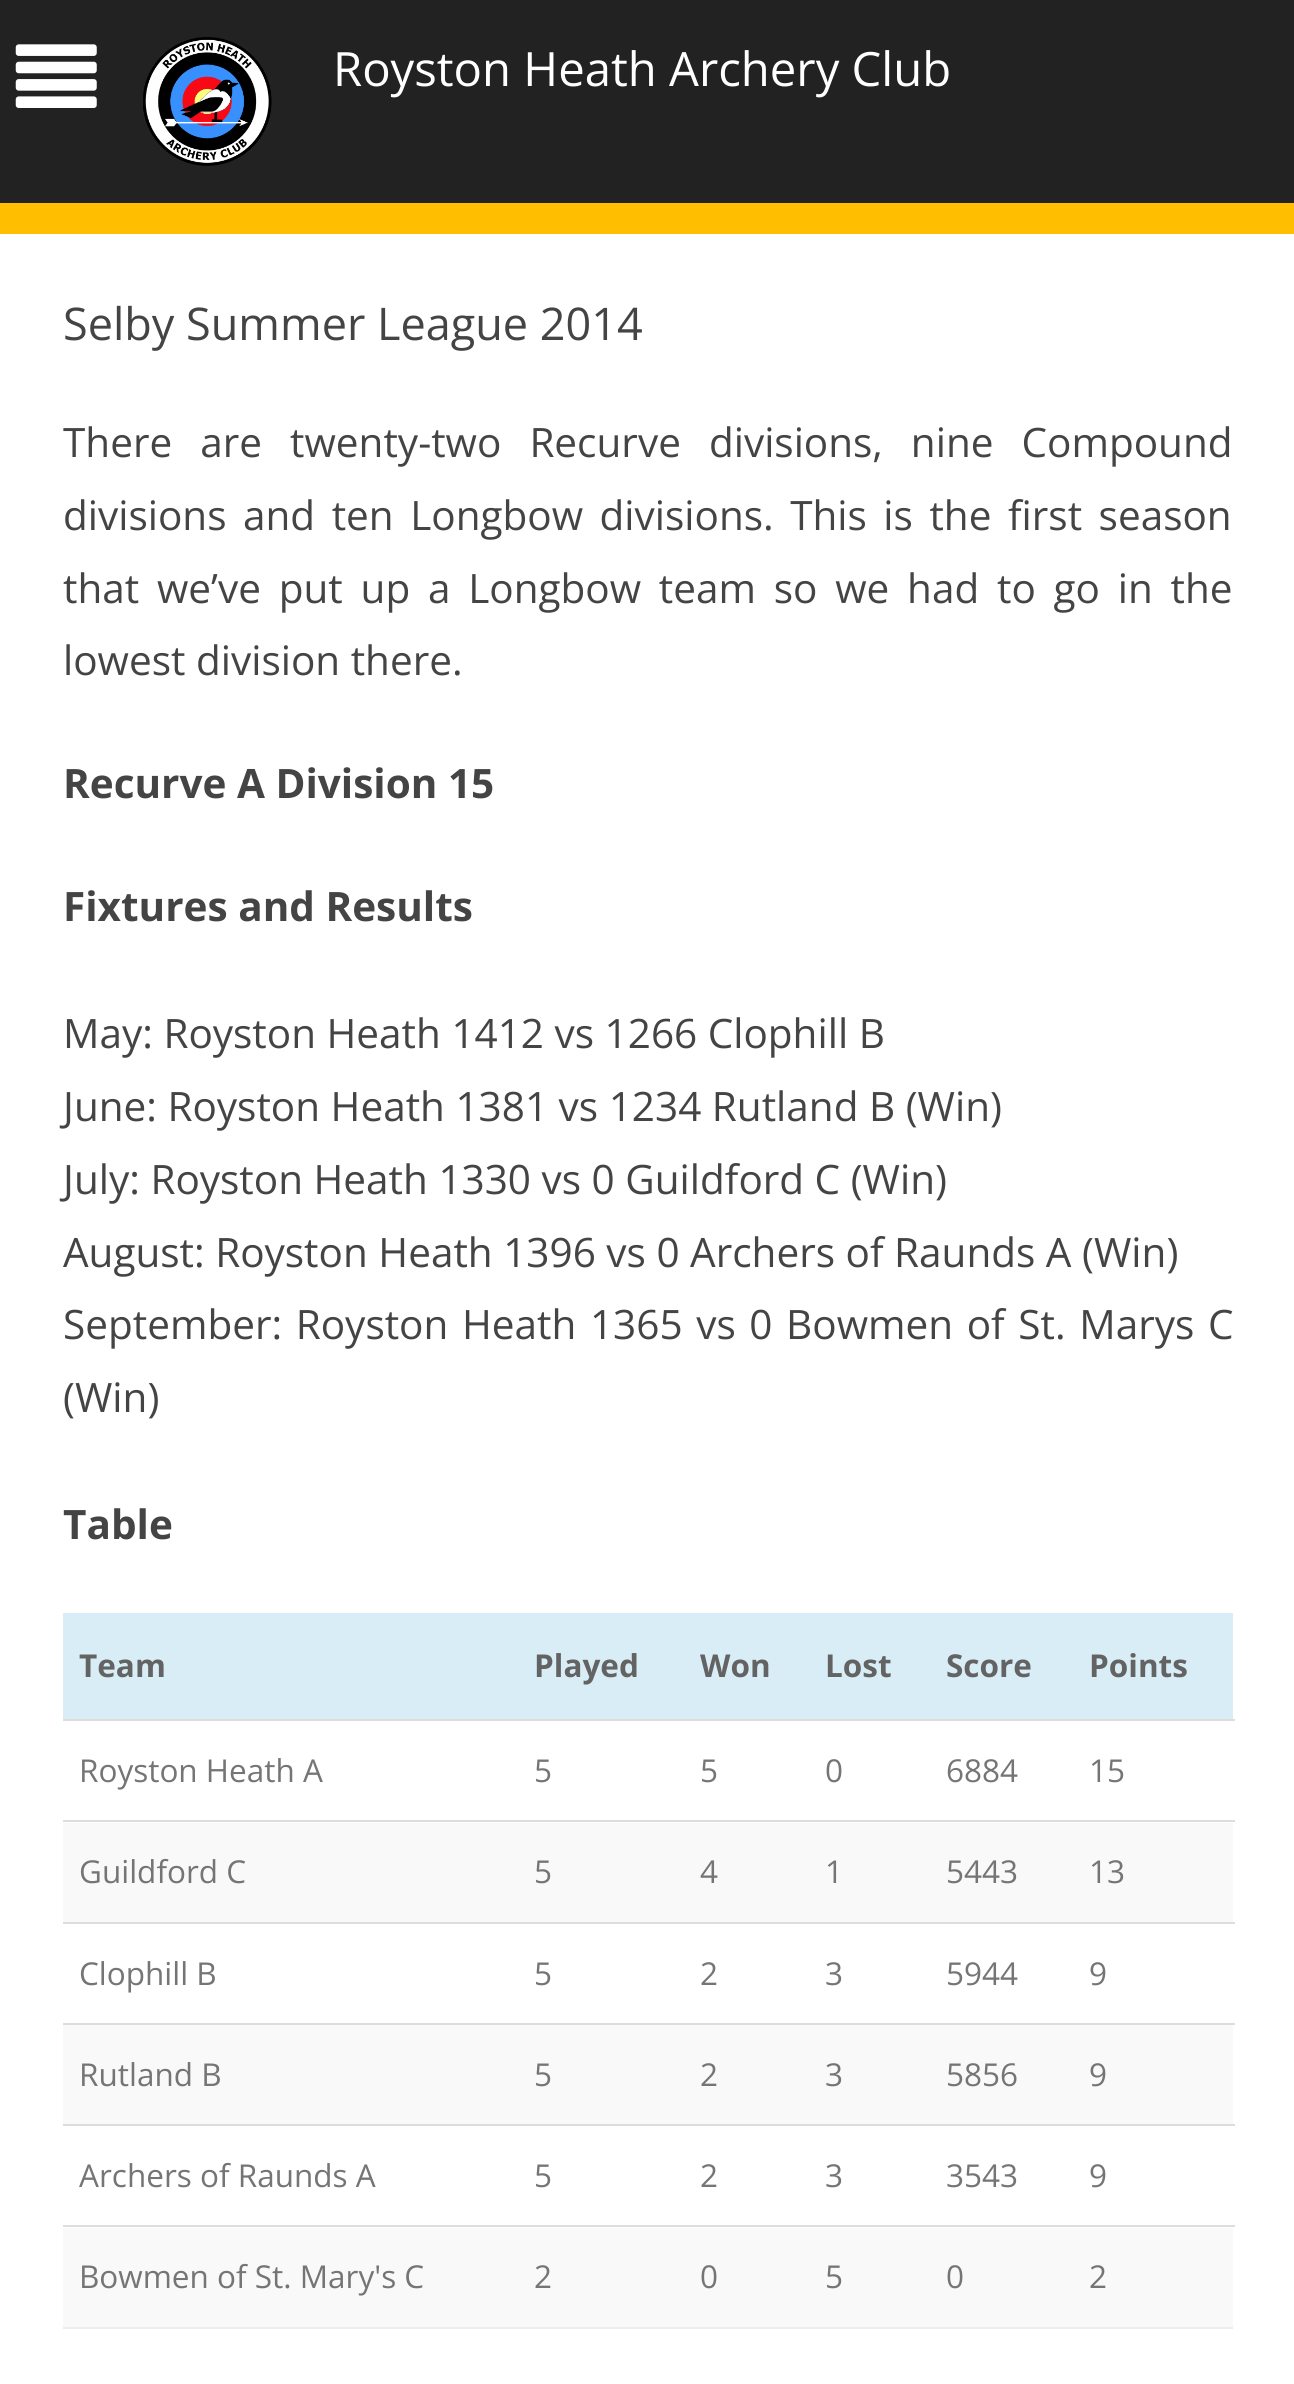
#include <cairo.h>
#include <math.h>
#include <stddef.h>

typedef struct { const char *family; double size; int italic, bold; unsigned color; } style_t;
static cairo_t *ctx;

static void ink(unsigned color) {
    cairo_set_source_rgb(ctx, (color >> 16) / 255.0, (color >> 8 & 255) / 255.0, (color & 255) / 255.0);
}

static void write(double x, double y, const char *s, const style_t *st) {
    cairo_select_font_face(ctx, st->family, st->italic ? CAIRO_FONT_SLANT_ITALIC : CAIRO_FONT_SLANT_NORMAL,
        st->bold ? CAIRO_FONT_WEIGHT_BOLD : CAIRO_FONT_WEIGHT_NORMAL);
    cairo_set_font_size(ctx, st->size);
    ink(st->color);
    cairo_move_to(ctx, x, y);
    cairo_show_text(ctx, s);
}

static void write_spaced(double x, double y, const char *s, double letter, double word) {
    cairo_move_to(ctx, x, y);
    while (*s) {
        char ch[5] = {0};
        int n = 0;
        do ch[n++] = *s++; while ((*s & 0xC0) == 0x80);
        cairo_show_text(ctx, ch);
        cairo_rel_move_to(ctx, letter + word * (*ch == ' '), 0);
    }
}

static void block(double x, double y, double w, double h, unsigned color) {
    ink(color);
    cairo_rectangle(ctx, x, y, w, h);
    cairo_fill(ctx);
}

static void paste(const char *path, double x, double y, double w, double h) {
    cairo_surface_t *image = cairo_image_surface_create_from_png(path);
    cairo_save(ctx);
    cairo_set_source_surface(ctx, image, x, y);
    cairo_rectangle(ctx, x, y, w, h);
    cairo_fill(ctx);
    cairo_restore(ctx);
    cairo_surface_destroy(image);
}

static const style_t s1 = {"Open Sans", 47.25, 0, 0, 0xffffff};
static const style_t s2 = {"Open Sans", 45, 0, 0, 0x444444};
static const style_t s3 = {"Open Sans", 40.5, 0, 0, 0x444444};
static const style_t s4 = {"Open Sans", 40.5, 0, 1, 0x444444};
static const style_t s5 = {"Open Sans", 31.5, 0, 1, 0x636363};
static const style_t s6 = {"Open Sans", 31.5, 0, 0, 0x757575};

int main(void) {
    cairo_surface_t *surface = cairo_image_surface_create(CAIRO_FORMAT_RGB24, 1294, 2384);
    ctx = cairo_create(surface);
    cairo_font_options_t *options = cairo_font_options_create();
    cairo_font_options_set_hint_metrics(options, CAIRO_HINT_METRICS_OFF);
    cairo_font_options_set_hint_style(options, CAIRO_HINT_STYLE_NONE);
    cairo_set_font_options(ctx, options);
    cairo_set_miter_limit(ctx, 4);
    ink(0xffbf00);
    cairo_paint(ctx);
    block(0, 0, 1294, 203, 0x222222);
    paste("pic1.png", 15, 44, 82, 64);
    paste("pic2.png", 143, 37, 129, 129);
    write(333, 86, "Royston Heath Archery Club", &s1);
    block(0, 234, 1294, 2150, 0xffffff);
    write(63, 340, "Selby Summer League 2014", &s2);
    cairo_set_font_size(ctx, 40.5);
    write_spaced(63, 457, "There are twenty-two Recurve divisions, nine Compound", 0, 17.5);
    write_spaced(63, 530, "divisions and ten Longbow divisions. This is the first season", 0, 6);
    write_spaced(63, 603, "that we’ve put up a Longbow team so we had to go in the", 0, 7.25);
    write(63, 675, "lowest division there.", &s3);
    write(63, 798, "Recurve A Division 15", &s4);
    write(63, 921, "Fixtures and Results", &s4);
    write(63, 1048, "May: Royston Heath 1412 vs 1266 Clophill B", &s3);
    write(63, 1121, "June: Royston Heath 1381 vs 1234 Rutland B (Win)", &s3);
    write(63, 1194, "July: Royston Heath 1330 vs 0 Guildford C (Win)", &s3);
    write(63, 1267, "August: Royston Heath 1396 vs 0 Archers of Raunds A (Win)", &s3);
    write_spaced(63, 1339, "September: Royston Heath 1365 vs 0 Bowmen of St. Marys C", 0, 3.1);
    write(63, 1412, "(Win)", &s3);
    write(63, 1539, "Table", &s4);
    block(63, 2327, 1170, 2, 0xededed);
    block(63, 1613, 1170, 106, 0xd9edf7);
    write(79, 1677, "Team", &s5);
    write(534, 1677, "Played", &s5);
    write(700, 1677, "Won", &s5);
    write(825, 1677, "Lost", &s5);
    write(946, 1677, "Score", &s5);
    block(63, 1719, 1172, 2, 0xdddddd);
    write(1089, 1677, "Points", &s5);
    write(79, 1782, "Royston Heath A", &s6);
    write(534, 1782, "5", &s6);
    write(700, 1782, "5", &s6);
    write(825, 1782, "0", &s6);
    write(946, 1782, "6884", &s6);
    write(1089, 1782, "15", &s6);
    block(63, 1823, 1170, 99, 0xf9f9f9);
    write(79, 1883, "Guildford C", &s6);
    write(534, 1883, "5", &s6);
    write(700, 1883, "4", &s6);
    write(825, 1883, "1", &s6);
    write(946, 1883, "5443", &s6);
    block(63, 1820, 1172, 2, 0xdddddd);
    write(1089, 1883, "13", &s6);
    write(79, 1985, "Clophill B", &s6);
    write(534, 1985, "5", &s6);
    write(700, 1985, "2", &s6);
    write(825, 1985, "3", &s6);
    write(946, 1985, "5944", &s6);
    block(63, 1922, 1172, 2, 0xdddddd);
    write(1089, 1985, "9", &s6);
    block(63, 2025, 1170, 99, 0xf9f9f9);
    write(79, 2086, "Rutland B", &s6);
    write(534, 2086, "5", &s6);
    write(700, 2086, "2", &s6);
    write(825, 2086, "3", &s6);
    write(946, 2086, "5856", &s6);
    block(63, 2023, 1172, 2, 0xdddddd);
    write(1089, 2086, "9", &s6);
    write(79, 2187, "Archers of Raunds A", &s6);
    write(534, 2187, "5", &s6);
    write(700, 2187, "2", &s6);
    write(825, 2187, "3", &s6);
    write(946, 2187, "3543", &s6);
    block(63, 2124, 1172, 2, 0xdddddd);
    write(1089, 2187, "9", &s6);
    block(63, 2228, 1170, 99, 0xf9f9f9);
    write(79, 2288, "Bowmen of St. Mary's C", &s6);
    write(534, 2288, "2", &s6);
    write(700, 2288, "0", &s6);
    write(825, 2288, "5", &s6);
    write(946, 2288, "0", &s6);
    block(63, 2225, 1172, 2, 0xdddddd);
    write(1089, 2288, "2", &s6);
    cairo_surface_write_to_png(surface, "screenshot.png");
    cairo_font_options_destroy(options);
    cairo_destroy(ctx);
    cairo_surface_destroy(surface);
    return 0;
}
